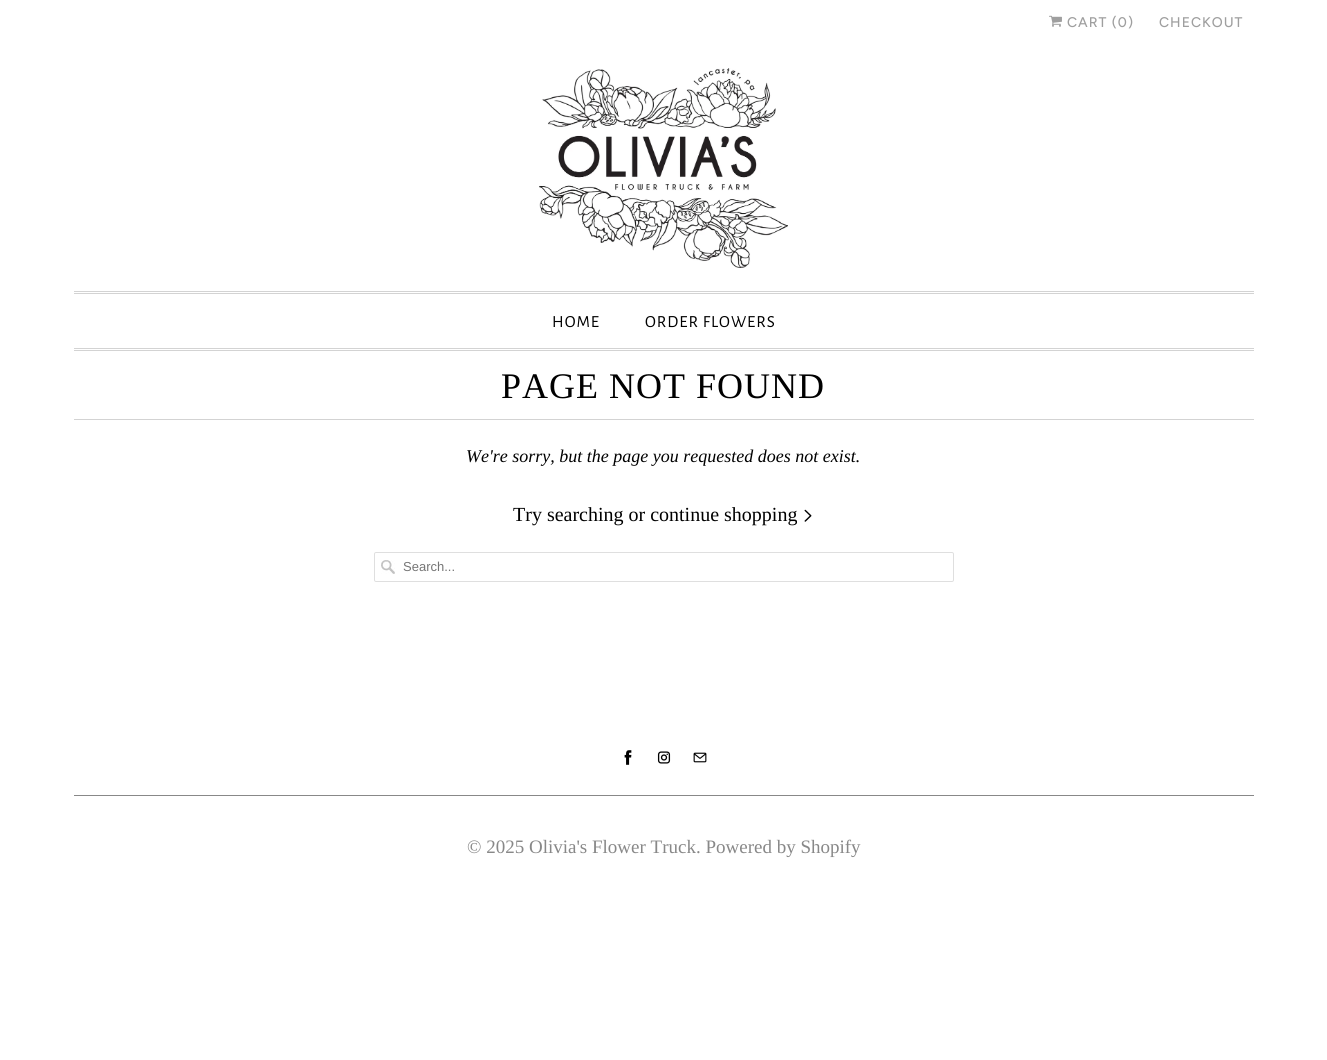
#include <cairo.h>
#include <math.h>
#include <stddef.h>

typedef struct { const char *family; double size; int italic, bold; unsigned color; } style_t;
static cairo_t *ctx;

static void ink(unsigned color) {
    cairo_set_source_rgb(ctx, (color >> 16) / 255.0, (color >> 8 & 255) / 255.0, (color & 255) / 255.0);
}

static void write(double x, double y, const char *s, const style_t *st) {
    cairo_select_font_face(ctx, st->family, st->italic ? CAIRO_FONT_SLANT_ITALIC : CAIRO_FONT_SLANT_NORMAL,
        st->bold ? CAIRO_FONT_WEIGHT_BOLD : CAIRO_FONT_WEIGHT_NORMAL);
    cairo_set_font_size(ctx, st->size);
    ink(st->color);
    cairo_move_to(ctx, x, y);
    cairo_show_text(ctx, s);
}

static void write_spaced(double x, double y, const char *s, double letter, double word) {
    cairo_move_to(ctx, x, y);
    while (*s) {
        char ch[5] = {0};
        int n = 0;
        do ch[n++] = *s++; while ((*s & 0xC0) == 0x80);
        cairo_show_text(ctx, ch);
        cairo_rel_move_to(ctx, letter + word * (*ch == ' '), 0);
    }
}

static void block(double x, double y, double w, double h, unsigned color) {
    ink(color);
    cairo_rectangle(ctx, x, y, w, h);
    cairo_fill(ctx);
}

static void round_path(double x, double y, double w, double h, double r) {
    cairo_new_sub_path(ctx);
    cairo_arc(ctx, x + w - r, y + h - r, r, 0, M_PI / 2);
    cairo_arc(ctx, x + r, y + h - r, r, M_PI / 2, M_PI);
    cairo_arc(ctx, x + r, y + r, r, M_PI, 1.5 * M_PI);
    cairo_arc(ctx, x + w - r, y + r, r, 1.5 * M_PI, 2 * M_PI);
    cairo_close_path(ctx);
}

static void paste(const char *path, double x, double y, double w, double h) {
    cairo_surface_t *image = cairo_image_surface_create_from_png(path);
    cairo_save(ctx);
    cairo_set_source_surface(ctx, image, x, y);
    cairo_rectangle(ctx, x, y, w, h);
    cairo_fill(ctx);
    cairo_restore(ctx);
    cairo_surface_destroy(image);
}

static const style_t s1 = {"Liberation Serif", 18, 1, 0, 0x000000};
static const style_t s2 = {"Liberation Serif", 20, 0, 0, 0x000000};
static const style_t s3 = {"Liberation Sans", 13, 0, 0, 0x757575};
static const style_t s4 = {"Liberation Serif", 19, 0, 0, 0x888888};

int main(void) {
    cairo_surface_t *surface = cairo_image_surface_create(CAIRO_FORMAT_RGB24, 1327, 1060);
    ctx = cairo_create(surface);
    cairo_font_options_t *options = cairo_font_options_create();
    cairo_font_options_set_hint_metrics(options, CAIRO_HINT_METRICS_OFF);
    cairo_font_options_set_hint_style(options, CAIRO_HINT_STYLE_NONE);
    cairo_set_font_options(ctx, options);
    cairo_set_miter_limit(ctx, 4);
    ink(0xffffff);
    cairo_paint(ctx);
    paste("pic1.png", 1049, 15, 13, 12);
    cairo_select_font_face(ctx, "Figtree Medium", CAIRO_FONT_SLANT_NORMAL, CAIRO_FONT_WEIGHT_NORMAL);
    cairo_set_font_size(ctx, 14);
    ink(0x9f9f9f);
    write_spaced(1067, 27, "CART (0)", 1, 0);
    write_spaced(1159, 27, "CHECKOUT", 1, 0);
    paste("pic2.png", 539, 68, 249, 200);
    block(74, 291, 1180, 1, 0xd3d3d3);
    block(74, 293, 1180, 1, 0xd3d3d3);
    block(74, 348, 1180, 1, 0xd3d3d3);
    block(74, 350, 1180, 1, 0xd3d3d3);
    cairo_select_font_face(ctx, "Alegreya Sans", CAIRO_FONT_SLANT_NORMAL, CAIRO_FONT_WEIGHT_NORMAL);
    cairo_set_font_size(ctx, 17);
    ink(0x000000);
    write_spaced(552, 327, "HOME", 1, 0);
    write_spaced(645, 327, "ORDER FLOWERS", 1, 0);
    block(74, 419, 1180, 1, 0xd3d3d3);
    cairo_select_font_face(ctx, "Liberation Serif", CAIRO_FONT_SLANT_NORMAL, CAIRO_FONT_WEIGHT_NORMAL);
    cairo_set_font_size(ctx, 36);
    ink(0x000000);
    write_spaced(501, 398, "PAGE NOT FOUND", 1, 0);
    write(466, 462, "We're sorry, but the page you requested does not exist.", &s1);
    write(513, 521, "Try searching or continue shopping", &s2);
    paste("pic3.png", 804, 509, 8, 13);
    paste("pic4.png", 381, 560, 14, 14);
    round_path(374.5, 552.5, 579, 29, 1.5);
    ink(0xdfdfdf);
    cairo_set_line_width(ctx, 1);
    cairo_stroke(ctx);
    write(403, 571, "Search...", &s3);
    paste("pic5.png", 624, 750, 8, 15);
    paste("pic6.png", 657, 751, 14, 13);
    paste("pic7.png", 693, 752, 14, 11);
    block(74, 795, 1180, 1, 0x888888);
    write(467, 853, "© 2025 Olivia's Flower Truck. Powered by Shopify", &s4);
    cairo_surface_write_to_png(surface, "screenshot.png");
    cairo_font_options_destroy(options);
    cairo_destroy(ctx);
    cairo_surface_destroy(surface);
    return 0;
}
